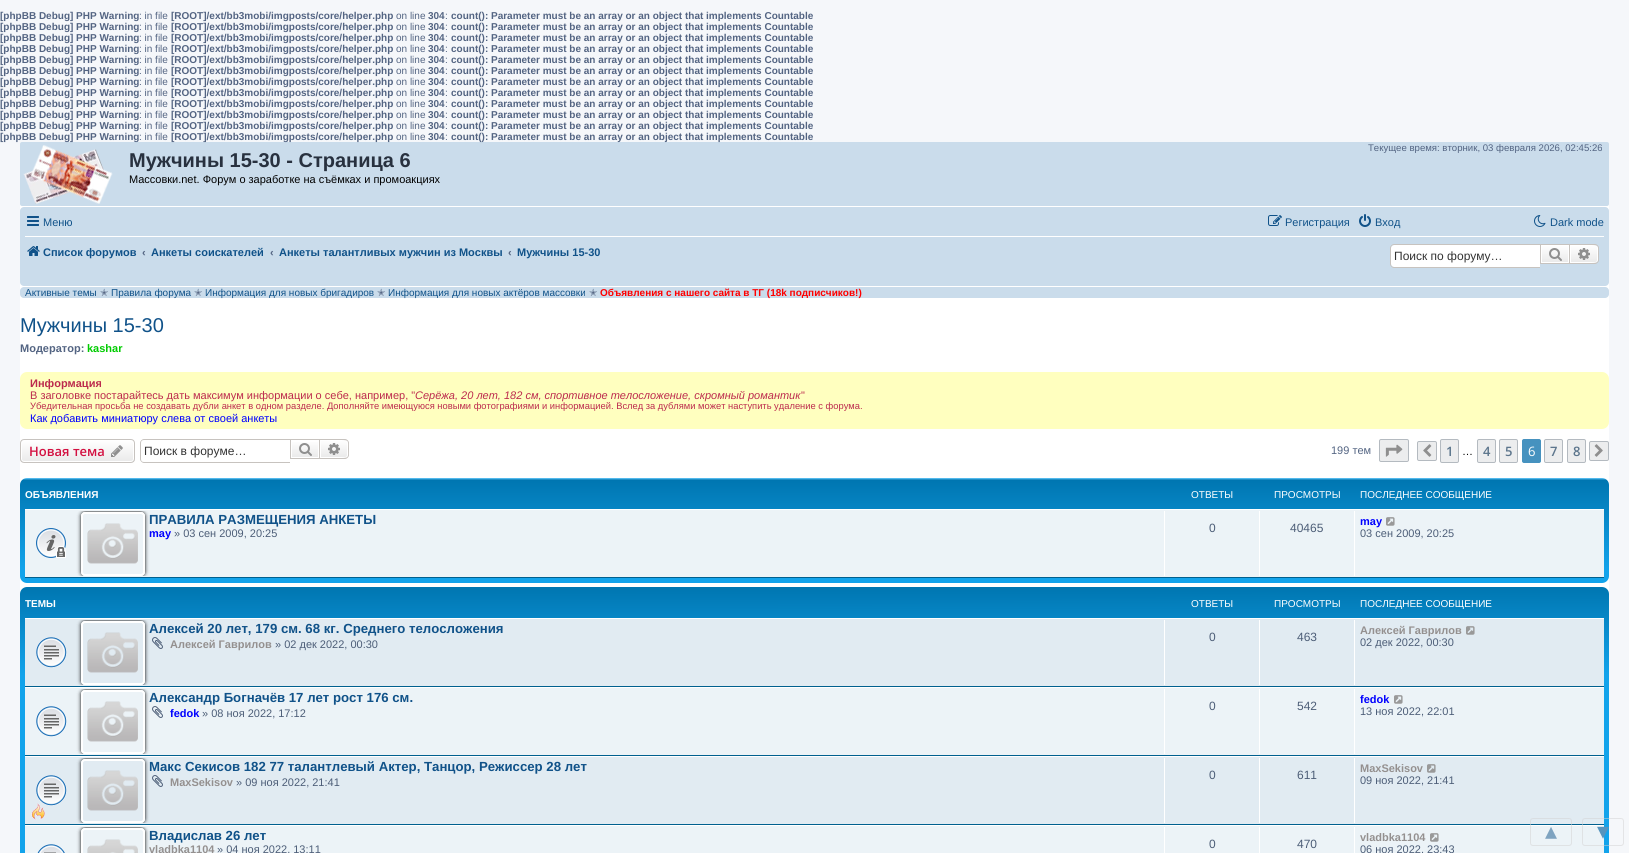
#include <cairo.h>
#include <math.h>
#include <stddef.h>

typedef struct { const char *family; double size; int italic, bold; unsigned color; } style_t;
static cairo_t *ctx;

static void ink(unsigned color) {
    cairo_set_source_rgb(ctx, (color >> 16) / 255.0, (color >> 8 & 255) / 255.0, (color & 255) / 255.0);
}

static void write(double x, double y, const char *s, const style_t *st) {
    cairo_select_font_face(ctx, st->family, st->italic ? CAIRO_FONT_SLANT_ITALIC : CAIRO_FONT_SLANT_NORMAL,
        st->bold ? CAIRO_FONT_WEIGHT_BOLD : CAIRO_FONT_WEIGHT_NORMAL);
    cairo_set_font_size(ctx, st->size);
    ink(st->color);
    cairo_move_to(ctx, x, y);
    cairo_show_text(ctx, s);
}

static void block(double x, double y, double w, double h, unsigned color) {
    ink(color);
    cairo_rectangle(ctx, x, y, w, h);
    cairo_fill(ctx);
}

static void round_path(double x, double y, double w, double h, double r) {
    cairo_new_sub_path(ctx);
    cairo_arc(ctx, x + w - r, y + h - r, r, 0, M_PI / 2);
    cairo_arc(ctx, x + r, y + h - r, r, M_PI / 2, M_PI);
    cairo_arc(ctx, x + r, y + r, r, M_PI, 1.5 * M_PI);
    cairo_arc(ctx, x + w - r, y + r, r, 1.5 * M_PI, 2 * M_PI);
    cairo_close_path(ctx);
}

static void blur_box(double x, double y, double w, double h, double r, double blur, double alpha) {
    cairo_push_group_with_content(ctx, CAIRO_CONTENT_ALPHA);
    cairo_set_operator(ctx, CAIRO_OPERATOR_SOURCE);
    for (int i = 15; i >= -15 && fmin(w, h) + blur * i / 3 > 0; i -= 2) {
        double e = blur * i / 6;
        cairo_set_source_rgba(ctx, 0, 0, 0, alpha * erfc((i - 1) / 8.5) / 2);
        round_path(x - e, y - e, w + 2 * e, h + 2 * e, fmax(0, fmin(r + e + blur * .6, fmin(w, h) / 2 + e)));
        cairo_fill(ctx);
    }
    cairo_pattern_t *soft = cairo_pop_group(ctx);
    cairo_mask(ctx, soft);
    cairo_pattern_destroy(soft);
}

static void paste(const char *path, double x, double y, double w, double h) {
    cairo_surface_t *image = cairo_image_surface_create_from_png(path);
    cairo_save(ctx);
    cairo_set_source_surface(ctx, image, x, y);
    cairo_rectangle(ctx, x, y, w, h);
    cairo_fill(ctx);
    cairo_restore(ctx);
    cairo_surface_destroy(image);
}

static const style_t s1 = {"Liberation Sans", 10, 0, 1, 0x536482};
static const style_t s2 = {"Liberation Sans", 10, 0, 0, 0x536482};
static const style_t s3 = {"Liberation Sans", 9.6, 0, 0, 0x536482};
static const style_t s4 = {"Liberation Sans", 20, 0, 1, 0x28313f};
static const style_t s5 = {"Liberation Sans", 11, 0, 0, 0x000000};
static const style_t s6 = {"Liberation Sans", 11, 0, 0, 0x105289};
static const style_t s7 = {"Liberation Sans", 11, 0, 1, 0x105289};
static const style_t s8 = {"Liberation Sans", 11, 0, 1, 0x536482};
static const style_t s9 = {"Liberation Sans", 12, 0, 0, 0x333333};
static const style_t s10 = {"Liberation Sans", 10, 0, 0, 0x105289};
static const style_t s11 = {"DejaVu Sans", 10, 0, 0, 0x536482};
static const style_t s12 = {"Liberation Sans", 10, 0, 1, 0xff0000};
static const style_t s13 = {"Liberation Sans", 20, 0, 0, 0x105289};
static const style_t s14 = {"Liberation Sans", 11, 0, 1, 0x00cc00};
static const style_t s15 = {"Liberation Sans", 11, 0, 1, 0xbc2a4d};
static const style_t s16 = {"Liberation Sans", 11, 0, 0, 0xbc2a4d};
static const style_t s17 = {"Liberation Sans", 11, 1, 0, 0xbc2a4d};
static const style_t s18 = {"Liberation Sans", 9.35, 0, 0, 0xbc2a4d};
static const style_t s19 = {"Liberation Sans", 11, 0, 0, 0x0000ff};
static const style_t s20 = {"Open Sans SemiBold", 13, 0, 0, 0xd31141};
static const style_t s21 = {"Liberation Sans", 11, 0, 0, 0x536482};
static const style_t s22 = {"Open Sans SemiBold", 13, 0, 0, 0x5c758c};
static const style_t s23 = {"Open Sans", 13, 0, 0, 0xffffff};
static const style_t s24 = {"Liberation Sans", 10, 0, 1, 0xffffff};
static const style_t s25 = {"Liberation Sans", 10, 0, 0, 0xffffff};
static const style_t s26 = {"Liberation Sans", 13.2, 0, 1, 0x105289};
static const style_t s27 = {"Liberation Sans", 11, 0, 1, 0x0000ff};
static const style_t s28 = {"Liberation Sans", 11, 0, 0, 0x4c5d77};
static const style_t s29 = {"Liberation Sans", 12, 0, 0, 0x4c5d77};
static const style_t s30 = {"Liberation Sans", 11, 0, 1, 0x94908f};
static const style_t s31 = {"DejaVu Sans Mono", 20, 0, 1, 0x7ea3c0};
static const style_t s32 = {"DejaVu Sans Mono", 20, 0, 1, 0x5694be};

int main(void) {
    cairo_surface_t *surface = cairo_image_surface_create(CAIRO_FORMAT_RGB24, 1629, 853);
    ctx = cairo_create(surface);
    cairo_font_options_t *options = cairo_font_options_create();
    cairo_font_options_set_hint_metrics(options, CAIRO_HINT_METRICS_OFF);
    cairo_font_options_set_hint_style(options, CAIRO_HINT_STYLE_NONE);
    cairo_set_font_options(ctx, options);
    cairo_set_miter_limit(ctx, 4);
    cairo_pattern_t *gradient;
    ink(0xf5f7fa);
    cairo_paint(ctx);
    write(0, 19, "[phpBB Debug] PHP Warning", &s1);
    write(139, 19, ": in file", &s2);
    write(171, 19, "[ROOT]/ext/bb3mobi/imgposts/core/helper.php", &s1);
    write(396, 19, "on line", &s2);
    write(428, 19, "304", &s1);
    write(445, 19, ":", &s2);
    write(451, 19, "count(): Parameter must be an array or an object that implements Countable", &s1);
    write(0, 30, "[phpBB Debug] PHP Warning", &s1);
    write(139, 30, ": in file", &s2);
    write(171, 30, "[ROOT]/ext/bb3mobi/imgposts/core/helper.php", &s1);
    write(396, 30, "on line", &s2);
    write(428, 30, "304", &s1);
    write(445, 30, ":", &s2);
    write(451, 30, "count(): Parameter must be an array or an object that implements Countable", &s1);
    write(0, 41, "[phpBB Debug] PHP Warning", &s1);
    write(139, 41, ": in file", &s2);
    write(171, 41, "[ROOT]/ext/bb3mobi/imgposts/core/helper.php", &s1);
    write(396, 41, "on line", &s2);
    write(428, 41, "304", &s1);
    write(445, 41, ":", &s2);
    write(451, 41, "count(): Parameter must be an array or an object that implements Countable", &s1);
    write(0, 52, "[phpBB Debug] PHP Warning", &s1);
    write(139, 52, ": in file", &s2);
    write(171, 52, "[ROOT]/ext/bb3mobi/imgposts/core/helper.php", &s1);
    write(396, 52, "on line", &s2);
    write(428, 52, "304", &s1);
    write(445, 52, ":", &s2);
    write(451, 52, "count(): Parameter must be an array or an object that implements Countable", &s1);
    write(0, 63, "[phpBB Debug] PHP Warning", &s1);
    write(139, 63, ": in file", &s2);
    write(171, 63, "[ROOT]/ext/bb3mobi/imgposts/core/helper.php", &s1);
    write(396, 63, "on line", &s2);
    write(428, 63, "304", &s1);
    write(445, 63, ":", &s2);
    write(451, 63, "count(): Parameter must be an array or an object that implements Countable", &s1);
    write(0, 74, "[phpBB Debug] PHP Warning", &s1);
    write(139, 74, ": in file", &s2);
    write(171, 74, "[ROOT]/ext/bb3mobi/imgposts/core/helper.php", &s1);
    write(396, 74, "on line", &s2);
    write(428, 74, "304", &s1);
    write(445, 74, ":", &s2);
    write(451, 74, "count(): Parameter must be an array or an object that implements Countable", &s1);
    write(0, 85, "[phpBB Debug] PHP Warning", &s1);
    write(139, 85, ": in file", &s2);
    write(171, 85, "[ROOT]/ext/bb3mobi/imgposts/core/helper.php", &s1);
    write(396, 85, "on line", &s2);
    write(428, 85, "304", &s1);
    write(445, 85, ":", &s2);
    write(451, 85, "count(): Parameter must be an array or an object that implements Countable", &s1);
    write(0, 96, "[phpBB Debug] PHP Warning", &s1);
    write(139, 96, ": in file", &s2);
    write(171, 96, "[ROOT]/ext/bb3mobi/imgposts/core/helper.php", &s1);
    write(396, 96, "on line", &s2);
    write(428, 96, "304", &s1);
    write(445, 96, ":", &s2);
    write(451, 96, "count(): Parameter must be an array or an object that implements Countable", &s1);
    write(0, 107, "[phpBB Debug] PHP Warning", &s1);
    write(139, 107, ": in file", &s2);
    write(171, 107, "[ROOT]/ext/bb3mobi/imgposts/core/helper.php", &s1);
    write(396, 107, "on line", &s2);
    write(428, 107, "304", &s1);
    write(445, 107, ":", &s2);
    write(451, 107, "count(): Parameter must be an array or an object that implements Countable", &s1);
    write(0, 118, "[phpBB Debug] PHP Warning", &s1);
    write(139, 118, ": in file", &s2);
    write(171, 118, "[ROOT]/ext/bb3mobi/imgposts/core/helper.php", &s1);
    write(396, 118, "on line", &s2);
    write(428, 118, "304", &s1);
    write(445, 118, ":", &s2);
    write(451, 118, "count(): Parameter must be an array or an object that implements Countable", &s1);
    write(0, 129, "[phpBB Debug] PHP Warning", &s1);
    write(139, 129, ": in file", &s2);
    write(171, 129, "[ROOT]/ext/bb3mobi/imgposts/core/helper.php", &s1);
    write(396, 129, "on line", &s2);
    write(428, 129, "304", &s1);
    write(445, 129, ":", &s2);
    write(451, 129, "count(): Parameter must be an array or an object that implements Countable", &s1);
    ink(0xffffff);
    round_path(20, 142, 1589, 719, 8);
    cairo_fill(ctx);
    ink(0xcadceb);
    round_path(20, 142, 1589, 64, 2);
    cairo_fill(ctx);
    write(0, 140, "[phpBB Debug] PHP Warning", &s1);
    write(139, 140, ": in file", &s2);
    write(171, 140, "[ROOT]/ext/bb3mobi/imgposts/core/helper.php", &s1);
    write(396, 140, "on line", &s2);
    write(428, 140, "304", &s1);
    write(445, 140, ":", &s2);
    write(451, 140, "count(): Parameter must be an array or an object that implements Countable", &s1);
    write(1368, 151, "Текущее время: вторник, 03 февраля 2026, 02:45:26", &s3);
    paste("pic1.png", 23, 145, 90, 59);
    write(129, 167, "Мужчины 15-30 - Страница 6", &s4);
    write(129, 183, "Массовки.net. Форум о заработке на съёмках и промоакциях", &s5);
    ink(0xcadceb);
    round_path(20, 207, 1589, 79, 4);
    cairo_fill(ctx);
    paste("pic2.png", 27, 216, 12, 10);
    write(43, 226, "Меню", &s6);
    paste("pic3.png", 1268, 215, 14, 11);
    write(1285, 226, "Регистрация", &s6);
    paste("pic4.png", 1359, 214, 12, 13);
    write(1375, 226, "Вход", &s6);
    paste("pic5.png", 1534, 215, 12, 12);
    write(1550, 226, "Dark mode", &s6);
    block(25, 236, 1579, 1, 0xffffff);
    paste("pic6.png", 27, 246, 13, 10);
    write(43, 256, "Список форумов", &s7);
    write(142, 256, "‹", &s8);
    write(151, 256, "Анкеты соискателей", &s7);
    write(270, 256, "‹", &s8);
    write(279, 256, "Анкеты талантливых мужчин из Москвы", &s7);
    write(508, 256, "‹", &s8);
    write(517, 256, "Мужчины 15-30", &s7);
    ink(0xffffff);
    cairo_new_path(ctx);
    cairo_move_to(ctx, 1394, 245);
    cairo_line_to(ctx, 1540, 245);
    cairo_line_to(ctx, 1540, 267);
    cairo_line_to(ctx, 1394, 267);
    cairo_curve_to(ctx, 1392.5, 267, 1391, 265.5, 1391, 264);
    cairo_line_to(ctx, 1391, 248);
    cairo_curve_to(ctx, 1391, 246.5, 1392.5, 245, 1394, 245);
    cairo_close_path(ctx);
    cairo_fill(ctx);
    ink(0xc7c3bf);
    cairo_set_fill_rule(ctx, CAIRO_FILL_RULE_EVEN_ODD);
    cairo_new_path(ctx);
    cairo_move_to(ctx, 1394, 244);
    cairo_line_to(ctx, 1540, 244);
    cairo_line_to(ctx, 1540, 268);
    cairo_line_to(ctx, 1394, 268);
    cairo_curve_to(ctx, 1392, 268, 1390, 266, 1390, 264);
    cairo_line_to(ctx, 1390, 248);
    cairo_curve_to(ctx, 1390, 246, 1392, 244, 1394, 244);
    cairo_close_path(ctx);
    cairo_move_to(ctx, 1394, 245);
    cairo_line_to(ctx, 1540, 245);
    cairo_line_to(ctx, 1540, 267);
    cairo_line_to(ctx, 1394, 267);
    cairo_curve_to(ctx, 1392, 267, 1391, 266, 1391, 264);
    cairo_line_to(ctx, 1391, 248);
    cairo_curve_to(ctx, 1391, 246, 1392, 245, 1394, 245);
    cairo_close_path(ctx);
    cairo_fill(ctx);
    write(1394, 260, "Поиск по форуму…", &s9);
    gradient = cairo_pattern_create_linear(1555, 245, 1555, 263);
    cairo_pattern_add_color_stop_rgba(gradient, 0, 1, 1, 1, 1);
    cairo_pattern_add_color_stop_rgba(gradient, 1, 0.914, 0.914, 0.914, 1);
    cairo_set_source(ctx, gradient);
    cairo_pattern_destroy(gradient);
    cairo_rectangle(ctx, 1542, 246, 26, 16);
    cairo_fill(ctx);
    cairo_rectangle(ctx, 1541.5, 245.5, 27, 17);
    ink(0xffffff);
    cairo_set_line_width(ctx, 1);
    cairo_stroke(ctx);
    cairo_rectangle(ctx, 1540.5, 244.5, 29, 19);
    ink(0xc7c3bf);
    cairo_stroke(ctx);
    paste("pic7.png", 1549, 248, 13, 13);
    gradient = cairo_pattern_create_linear(1584, 245, 1584, 263);
    cairo_pattern_add_color_stop_rgba(gradient, 0, 1, 1, 1, 1);
    cairo_pattern_add_color_stop_rgba(gradient, 1, 0.914, 0.914, 0.914, 1);
    cairo_set_source(ctx, gradient);
    cairo_pattern_destroy(gradient);
    cairo_new_path(ctx);
    cairo_move_to(ctx, 1570.5, 245.5);
    cairo_line_to(ctx, 1595, 245.5);
    cairo_curve_to(ctx, 1596.5, 245.5, 1597.5, 246.5, 1597.5, 248);
    cairo_line_to(ctx, 1597.5, 260);
    cairo_curve_to(ctx, 1597.5, 261.5, 1596.5, 262.5, 1595, 262.5);
    cairo_line_to(ctx, 1570.5, 262.5);
    cairo_close_path(ctx);
    cairo_fill_preserve(ctx);
    ink(0xffffff);
    cairo_stroke(ctx);
    ink(0xc7c3bf);
    cairo_new_path(ctx);
    cairo_move_to(ctx, 1570, 244);
    cairo_line_to(ctx, 1595, 244);
    cairo_curve_to(ctx, 1597, 244, 1599, 246, 1599, 248);
    cairo_line_to(ctx, 1599, 260);
    cairo_curve_to(ctx, 1599, 262, 1597, 264, 1595, 264);
    cairo_line_to(ctx, 1570, 264);
    cairo_close_path(ctx);
    cairo_move_to(ctx, 1570, 245);
    cairo_line_to(ctx, 1591, 245);
    cairo_curve_to(ctx, 1599.5, 245, 1598, 246, 1598, 254);
    cairo_curve_to(ctx, 1598, 262, 1599.5, 263, 1591, 263);
    cairo_line_to(ctx, 1570, 263);
    cairo_close_path(ctx);
    cairo_fill(ctx);
    paste("pic8.png", 1578, 248, 12, 12);
    ink(0xcadceb);
    round_path(20, 287, 1589, 11, 4);
    cairo_fill(ctx);
    write(25, 296, "Активные темы", &s10);
    write(100, 296, "✭", &s11);
    write(111, 296, "Правила форума", &s10);
    write(194, 296, "✭", &s11);
    write(205, 296, "Информация для новых бригадиров", &s10);
    write(377, 296, "✭", &s11);
    write(388, 296, "Информация для новых актёров массовки", &s10);
    write(589, 296, "✭", &s11);
    write(600, 296, "Объявления с нашего сайта в ТГ (18k подписчиков!)", &s12);
    write(20, 332, "Мужчины 15-30", &s13);
    write(20, 352, "Модератор:", &s8);
    write(87, 352, "kashar", &s14);
    ink(0xffffbf);
    round_path(20, 372, 1589, 57, 7);
    cairo_fill(ctx);
    write(30, 387, "Информация", &s15);
    write(30, 399, "В заголовке постарайтесь дать максимум информации о себе, например, \"", &s16);
    write(415, 399, "Серёжа, 20 лет, 182 см, спортивное телосложение, скромный романтик", &s17);
    write(801, 399, "\"", &s16);
    write(30, 409, "Убедительная просьба не создавать дубли анкет в одном разделе. Дополняйте имеющуюся новыми фотографиями и информацией. Вслед за дублями может наступить удаление с форума.", &s18);
    write(30, 422, "Как добавить миниатюру слева от своей анкеты", &s19);
    cairo_save(ctx);
    cairo_set_fill_rule(ctx, CAIRO_FILL_RULE_WINDING);
    round_path(20, 439, 115, 24, 4);
    cairo_clip(ctx);
    gradient = cairo_pattern_create_linear(78, 440, 78, 462);
    cairo_pattern_add_color_stop_rgba(gradient, 0, 1, 1, 1, 1);
    cairo_pattern_add_color_stop_rgba(gradient, 1, 0.914, 0.914, 0.914, 1);
    cairo_set_source(ctx, gradient);
    cairo_pattern_destroy(gradient);
    cairo_rectangle(ctx, 20, 440, 115, 22);
    cairo_fill(ctx);
    cairo_restore(ctx);
    round_path(21.5, 440.5, 112, 21, 2.5);
    ink(0xffffff);
    cairo_stroke(ctx);
    round_path(20.5, 439.5, 114, 23, 3.5);
    ink(0xc7c3bf);
    cairo_stroke(ctx);
    write(29, 456, "Новая тема", &s20);
    paste("pic9.png", 111, 445, 12, 12);
    ink(0xc7c3bf);
    cairo_new_path(ctx);
    cairo_move_to(ctx, 144, 439);
    cairo_line_to(ctx, 290, 439);
    cairo_line_to(ctx, 290, 463);
    cairo_line_to(ctx, 144, 463);
    cairo_curve_to(ctx, 142, 463, 140, 461, 140, 459);
    cairo_line_to(ctx, 140, 443);
    cairo_curve_to(ctx, 140, 441, 142, 439, 144, 439);
    cairo_close_path(ctx);
    cairo_move_to(ctx, 144, 440);
    cairo_line_to(ctx, 290, 440);
    cairo_line_to(ctx, 290, 462);
    cairo_line_to(ctx, 144, 462);
    cairo_curve_to(ctx, 142, 462, 141, 461, 141, 459);
    cairo_line_to(ctx, 141, 443);
    cairo_curve_to(ctx, 141, 441, 142, 440, 144, 440);
    cairo_close_path(ctx);
    cairo_fill(ctx);
    write(144, 455, "Поиск в форуме…", &s9);
    gradient = cairo_pattern_create_linear(305, 440, 305, 458);
    cairo_pattern_add_color_stop_rgba(gradient, 0, 1, 1, 1, 1);
    cairo_pattern_add_color_stop_rgba(gradient, 1, 0.914, 0.914, 0.914, 1);
    cairo_set_source(ctx, gradient);
    cairo_pattern_destroy(gradient);
    cairo_rectangle(ctx, 292, 442, 26, 15);
    cairo_fill(ctx);
    cairo_rectangle(ctx, 290.5, 439.5, 29, 19);
    ink(0xc7c3bf);
    cairo_stroke(ctx);
    paste("pic7.png", 299, 443, 13, 13);
    gradient = cairo_pattern_create_linear(334, 440, 334, 458);
    cairo_pattern_add_color_stop_rgba(gradient, 0, 1, 1, 1, 1);
    cairo_pattern_add_color_stop_rgba(gradient, 1, 0.914, 0.914, 0.914, 1);
    cairo_set_source(ctx, gradient);
    cairo_pattern_destroy(gradient);
    cairo_new_path(ctx);
    cairo_move_to(ctx, 320.5, 440.5);
    cairo_line_to(ctx, 345, 440.5);
    cairo_curve_to(ctx, 346.5, 440.5, 347.5, 441.5, 347.5, 443);
    cairo_line_to(ctx, 347.5, 455);
    cairo_curve_to(ctx, 347.5, 456.5, 346.5, 457.5, 345, 457.5);
    cairo_line_to(ctx, 320.5, 457.5);
    cairo_close_path(ctx);
    cairo_fill_preserve(ctx);
    ink(0xffffff);
    cairo_stroke(ctx);
    ink(0xc7c3bf);
    cairo_new_path(ctx);
    cairo_move_to(ctx, 320, 439);
    cairo_line_to(ctx, 345, 439);
    cairo_curve_to(ctx, 347, 439, 349, 441, 349, 443);
    cairo_line_to(ctx, 349, 455);
    cairo_curve_to(ctx, 349, 457, 347, 459, 345, 459);
    cairo_line_to(ctx, 320, 459);
    cairo_close_path(ctx);
    cairo_move_to(ctx, 320, 440);
    cairo_line_to(ctx, 341, 440);
    cairo_curve_to(ctx, 349.5, 440, 348, 441, 348, 449);
    cairo_curve_to(ctx, 348, 457, 349.5, 458, 341, 458);
    cairo_line_to(ctx, 320, 458);
    cairo_close_path(ctx);
    cairo_fill(ctx);
    paste("pic8.png", 328, 443, 12, 12);
    write(1331, 454, "199 тем", &s21);
    ink(0xecedee);
    round_path(1379.5, 439.5, 29, 22, 1.5);
    cairo_fill_preserve(ctx);
    ink(0xb4bac0);
    cairo_stroke(ctx);
    paste("pic10.png", 1385, 444, 18, 13);
    ink(0xecedee);
    round_path(1417.5, 441.5, 19, 19, 1.5);
    cairo_fill_preserve(ctx);
    ink(0xb4bac0);
    cairo_stroke(ctx);
    paste("pic11.png", 1423, 444, 9, 13);
    ink(0xecedee);
    round_path(1440.5, 439.5, 18, 23, 1.5);
    cairo_fill_preserve(ctx);
    ink(0xb4bac0);
    cairo_stroke(ctx);
    write(1446, 456, "1", &s22);
    write(1462, 455, "…", &s5);
    ink(0xecedee);
    round_path(1477.5, 439.5, 18, 23, 1.5);
    cairo_fill_preserve(ctx);
    ink(0xb4bac0);
    cairo_stroke(ctx);
    write(1483, 456, "4", &s22);
    ink(0xecedee);
    round_path(1499.5, 439.5, 18, 23, 1.5);
    cairo_fill_preserve(ctx);
    ink(0xb4bac0);
    cairo_stroke(ctx);
    write(1505, 456, "5", &s22);
    ink(0x4692bf);
    round_path(1522.5, 439.5, 18, 23, 1.5);
    cairo_fill_preserve(ctx);
    cairo_stroke(ctx);
    write(1528, 456, "6", &s23);
    ink(0xecedee);
    round_path(1544.5, 439.5, 18, 23, 1.5);
    cairo_fill_preserve(ctx);
    ink(0xb4bac0);
    cairo_stroke(ctx);
    write(1550, 456, "7", &s22);
    ink(0xecedee);
    round_path(1567.5, 439.5, 18, 23, 1.5);
    cairo_fill_preserve(ctx);
    ink(0xb4bac0);
    cairo_stroke(ctx);
    write(1573, 456, "8", &s22);
    ink(0xecedee);
    round_path(1589.5, 441.5, 19, 19, 1.5);
    cairo_fill_preserve(ctx);
    ink(0xb4bac0);
    cairo_stroke(ctx);
    paste("pic12.png", 1594, 444, 9, 13);
    gradient = cairo_pattern_create_linear(815, 478, 815, 583);
    cairo_pattern_add_color_stop_rgba(gradient, 0, 0.416, 0.808, 1, 1);
    cairo_pattern_add_color_stop_rgba(gradient, 0.02, 0, 0.463, 0.694, 1);
    cairo_pattern_add_color_stop_rgba(gradient, 0.88, 0.071, 0.639, 0.922, 1);
    cairo_pattern_add_color_stop_rgba(gradient, 1, 0.071, 0.639, 0.922, 1);
    cairo_set_source(ctx, gradient);
    cairo_pattern_destroy(gradient);
    round_path(20, 478, 1589, 105, 7);
    cairo_fill(ctx);
    write(25, 498, "ОБЪЯВЛЕНИЯ", &s24);
    write(1191, 498, "ОТВЕТЫ", &s25);
    write(1274, 498, "ПРОСМОТРЫ", &s25);
    write(1360, 498, "ПОСЛЕДНЕЕ СООБЩЕНИЕ", &s25);
    block(25, 510, 1579, 67, 0xecf3f7);
    block(25, 509, 1579, 1, 0xffffff);
    block(25, 577, 1579, 1, 0x00608f);
    paste("pic13.png", 36, 528, 30, 30);
    cairo_save(ctx);
    cairo_set_fill_rule(ctx, CAIRO_FILL_RULE_WINDING);
    cairo_rectangle(ctx, 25, 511, 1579, 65);
    cairo_clip(ctx);
    cairo_set_fill_rule(ctx, CAIRO_FILL_RULE_EVEN_ODD);
    cairo_new_path(ctx);
    cairo_move_to(ctx, 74, 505);
    cairo_line_to(ctx, 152, 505);
    cairo_line_to(ctx, 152, 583);
    cairo_line_to(ctx, 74, 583);
    cairo_close_path(ctx);
    cairo_move_to(ctx, 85, 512);
    cairo_line_to(ctx, 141, 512);
    cairo_curve_to(ctx, 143, 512, 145, 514, 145, 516);
    cairo_line_to(ctx, 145, 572);
    cairo_curve_to(ctx, 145, 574, 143, 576, 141, 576);
    cairo_line_to(ctx, 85, 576);
    cairo_curve_to(ctx, 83, 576, 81, 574, 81, 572);
    cairo_line_to(ctx, 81, 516);
    cairo_curve_to(ctx, 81, 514, 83, 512, 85, 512);
    cairo_close_path(ctx);
    cairo_clip(ctx);
    ink(0x000000);
    blur_box(81, 512, 64, 64, 4, 2, 1);
    cairo_restore(ctx);
    round_path(82, 513, 62, 62, 3);
    ink(0xffffff);
    cairo_set_line_width(ctx, 2);
    cairo_stroke(ctx);
    paste("pic14.png", 87, 523, 51, 41);
    write(149, 524, "ПРАВИЛА РАЗМЕЩЕНИЯ АНКЕТЫ", &s26);
    write(149, 537, "may", &s27);
    write(174, 537, "» 03 сен 2009, 20:25", &s28);
    block(1164, 511, 1, 65, 0xffffff);
    write(1209, 532, "0", &s29);
    block(1259, 511, 1, 65, 0xffffff);
    write(1290, 532, "40465", &s29);
    block(1354, 511, 1, 65, 0xffffff);
    write(1360, 525, "may", &s27);
    paste("pic15.png", 1386, 517, 9, 9);
    write(1360, 537, "03 сен 2009, 20:25", &s28);
    gradient = cairo_pattern_create_linear(814, 587, 815, 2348);
    cairo_pattern_add_color_stop_rgba(gradient, 0, 0.416, 0.808, 1, 1);
    cairo_pattern_add_color_stop_rgba(gradient, 0, 0, 0.463, 0.694, 1);
    cairo_pattern_add_color_stop_rgba(gradient, 0.05, 0.071, 0.639, 0.922, 1);
    cairo_pattern_add_color_stop_rgba(gradient, 1, 0.071, 0.639, 0.922, 1);
    cairo_set_source(ctx, gradient);
    cairo_pattern_destroy(gradient);
    round_path(20, 587, 1589, 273, 7);
    cairo_fill(ctx);
    write(25, 607, "ТЕМЫ", &s24);
    write(1191, 607, "ОТВЕТЫ", &s25);
    write(1274, 607, "ПРОСМОТРЫ", &s25);
    write(1360, 607, "ПОСЛЕДНЕЕ СООБЩЕНИЕ", &s25);
    block(25, 619, 1579, 67, 0xe1ebf2);
    block(25, 618, 1579, 1, 0xffffff);
    block(25, 686, 1579, 1, 0x00608f);
    paste("pic16.png", 36, 637, 31, 31);
    block(25, 688, 1579, 67, 0xecf3f7);
    block(25, 687, 1579, 1, 0xffffff);
    cairo_save(ctx);
    cairo_set_fill_rule(ctx, CAIRO_FILL_RULE_WINDING);
    cairo_rectangle(ctx, 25, 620, 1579, 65);
    cairo_clip(ctx);
    cairo_set_fill_rule(ctx, CAIRO_FILL_RULE_EVEN_ODD);
    cairo_new_path(ctx);
    cairo_move_to(ctx, 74, 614);
    cairo_line_to(ctx, 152, 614);
    cairo_line_to(ctx, 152, 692);
    cairo_line_to(ctx, 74, 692);
    cairo_close_path(ctx);
    cairo_move_to(ctx, 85, 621);
    cairo_line_to(ctx, 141, 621);
    cairo_curve_to(ctx, 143, 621, 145, 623, 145, 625);
    cairo_line_to(ctx, 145, 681);
    cairo_curve_to(ctx, 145, 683, 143, 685, 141, 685);
    cairo_line_to(ctx, 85, 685);
    cairo_curve_to(ctx, 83, 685, 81, 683, 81, 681);
    cairo_line_to(ctx, 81, 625);
    cairo_curve_to(ctx, 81, 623, 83, 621, 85, 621);
    cairo_close_path(ctx);
    cairo_clip(ctx);
    ink(0x000000);
    blur_box(81, 621, 64, 64, 4, 2, 1);
    cairo_restore(ctx);
    round_path(82, 622, 62, 62, 3);
    cairo_stroke(ctx);
    paste("pic17.png", 87, 632, 51, 41);
    write(149, 633, "Алексей 20 лет, 179 см. 68 кг. Среднего телосложения", &s26);
    paste("pic18.png", 152, 637, 11, 12);
    write(170, 648, "Алексей Гаврилов", &s30);
    write(275, 648, "» 02 дек 2022, 00:30", &s28);
    block(1164, 620, 1, 65, 0xffffff);
    write(1209, 641, "0", &s29);
    block(1259, 620, 1, 65, 0xffffff);
    write(1297, 641, "463", &s29);
    block(1354, 620, 1, 65, 0xffffff);
    write(1360, 634, "Алексей Гаврилов", &s30);
    paste("pic19.png", 1466, 626, 9, 9);
    write(1360, 646, "02 дек 2022, 00:30", &s28);
    block(25, 755, 1579, 1, 0x00608f);
    paste("pic20.png", 36, 706, 31, 31);
    block(25, 757, 1579, 67, 0xe1ebf2);
    block(25, 756, 1579, 1, 0xffffff);
    cairo_save(ctx);
    cairo_set_fill_rule(ctx, CAIRO_FILL_RULE_WINDING);
    cairo_rectangle(ctx, 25, 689, 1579, 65);
    cairo_clip(ctx);
    cairo_set_fill_rule(ctx, CAIRO_FILL_RULE_EVEN_ODD);
    cairo_new_path(ctx);
    cairo_move_to(ctx, 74, 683);
    cairo_line_to(ctx, 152, 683);
    cairo_line_to(ctx, 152, 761);
    cairo_line_to(ctx, 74, 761);
    cairo_close_path(ctx);
    cairo_move_to(ctx, 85, 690);
    cairo_line_to(ctx, 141, 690);
    cairo_curve_to(ctx, 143, 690, 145, 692, 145, 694);
    cairo_line_to(ctx, 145, 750);
    cairo_curve_to(ctx, 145, 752, 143, 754, 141, 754);
    cairo_line_to(ctx, 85, 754);
    cairo_curve_to(ctx, 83, 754, 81, 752, 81, 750);
    cairo_line_to(ctx, 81, 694);
    cairo_curve_to(ctx, 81, 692, 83, 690, 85, 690);
    cairo_close_path(ctx);
    cairo_clip(ctx);
    ink(0x000000);
    blur_box(81, 690, 64, 64, 4, 2, 1);
    cairo_restore(ctx);
    round_path(82, 691, 62, 62, 3);
    cairo_stroke(ctx);
    paste("pic21.png", 87, 701, 51, 41);
    write(149, 702, "Александр Богначёв 17 лет рост 176 см.", &s26);
    paste("pic22.png", 152, 706, 11, 12);
    write(170, 717, "fedok", &s27);
    write(202, 717, "» 08 ноя 2022, 17:12", &s28);
    block(1164, 689, 1, 65, 0xffffff);
    write(1209, 710, "0", &s29);
    block(1259, 689, 1, 65, 0xffffff);
    write(1297, 710, "542", &s29);
    block(1354, 689, 1, 65, 0xffffff);
    write(1360, 703, "fedok", &s27);
    paste("pic15.png", 1394, 695, 9, 9);
    write(1360, 715, "13 ноя 2022, 22:01", &s28);
    block(25, 824, 1579, 1, 0x00608f);
    paste("pic16.png", 36, 775, 31, 31);
    paste("pic23.png", 31, 803, 14, 17);
    block(25, 826, 1579, 27, 0xecf3f7);
    block(25, 825, 1579, 1, 0xffffff);
    cairo_save(ctx);
    cairo_set_fill_rule(ctx, CAIRO_FILL_RULE_WINDING);
    cairo_rectangle(ctx, 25, 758, 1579, 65);
    cairo_clip(ctx);
    cairo_set_fill_rule(ctx, CAIRO_FILL_RULE_EVEN_ODD);
    cairo_new_path(ctx);
    cairo_move_to(ctx, 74, 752);
    cairo_line_to(ctx, 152, 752);
    cairo_line_to(ctx, 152, 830);
    cairo_line_to(ctx, 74, 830);
    cairo_close_path(ctx);
    cairo_move_to(ctx, 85, 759);
    cairo_line_to(ctx, 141, 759);
    cairo_curve_to(ctx, 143, 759, 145, 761, 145, 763);
    cairo_line_to(ctx, 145, 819);
    cairo_curve_to(ctx, 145, 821, 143, 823, 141, 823);
    cairo_line_to(ctx, 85, 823);
    cairo_curve_to(ctx, 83, 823, 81, 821, 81, 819);
    cairo_line_to(ctx, 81, 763);
    cairo_curve_to(ctx, 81, 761, 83, 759, 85, 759);
    cairo_close_path(ctx);
    cairo_clip(ctx);
    ink(0x000000);
    blur_box(81, 759, 64, 64, 4, 2, 1);
    cairo_restore(ctx);
    round_path(82, 760, 62, 62, 3);
    cairo_stroke(ctx);
    paste("pic24.png", 87, 770, 51, 41);
    write(149, 771, "Макс Секисов 182 77 талантлевый Актер, Танцор, Режиссер 28 лет", &s26);
    paste("pic18.png", 152, 775, 11, 12);
    write(170, 786, "MaxSekisov", &s30);
    write(236, 786, "» 09 ноя 2022, 21:41", &s28);
    block(1164, 758, 1, 65, 0xffffff);
    write(1209, 779, "0", &s29);
    block(1259, 758, 1, 65, 0xffffff);
    write(1297, 779, "611", &s29);
    block(1354, 758, 1, 65, 0xffffff);
    write(1360, 772, "MaxSekisov", &s30);
    paste("pic19.png", 1427, 764, 9, 9);
    write(1360, 784, "09 ноя 2022, 21:41", &s28);
    paste("pic25.png", 37, 844, 28, 9);
    cairo_save(ctx);
    cairo_set_fill_rule(ctx, CAIRO_FILL_RULE_WINDING);
    cairo_rectangle(ctx, 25, 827, 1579, 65);
    cairo_clip(ctx);
    cairo_set_fill_rule(ctx, CAIRO_FILL_RULE_EVEN_ODD);
    cairo_new_path(ctx);
    cairo_move_to(ctx, 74, 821);
    cairo_line_to(ctx, 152, 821);
    cairo_line_to(ctx, 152, 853);
    cairo_line_to(ctx, 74, 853);
    cairo_close_path(ctx);
    cairo_move_to(ctx, 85, 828);
    cairo_line_to(ctx, 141, 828);
    cairo_curve_to(ctx, 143, 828, 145, 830, 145, 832);
    cairo_line_to(ctx, 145, 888);
    cairo_curve_to(ctx, 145, 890, 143, 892, 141, 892);
    cairo_line_to(ctx, 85, 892);
    cairo_curve_to(ctx, 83, 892, 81, 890, 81, 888);
    cairo_line_to(ctx, 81, 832);
    cairo_curve_to(ctx, 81, 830, 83, 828, 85, 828);
    cairo_close_path(ctx);
    cairo_clip(ctx);
    ink(0x000000);
    blur_box(81, 828, 64, 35, 4, 2, 1);
    cairo_restore(ctx);
    round_path(82, 829, 62, 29, 3);
    ink(0xffffff);
    cairo_stroke(ctx);
    paste("pic26.png", 87, 839, 51, 14);
    write(149, 840, "Владислав 26 лет", &s26);
    write(149, 853, "vladbka1104", &s30);
    write(217, 853, "» 04 ноя 2022, 13:11", &s28);
    block(1164, 827, 1, 26, 0xffffff);
    write(1209, 848, "0", &s29);
    block(1259, 827, 1, 26, 0xffffff);
    write(1297, 848, "470", &s29);
    block(1354, 827, 1, 26, 0xffffff);
    write(1360, 841, "vladbka1104", &s30);
    paste("pic15.png", 1430, 833, 9, 9);
    write(1360, 853, "06 ноя 2022, 23:43", &s28);
    round_path(1530.5, 818.5, 41, 27, 2.5);
    cairo_set_source_rgba(ctx, 0.827, 0.827, 0.827, 0.5);
    cairo_set_line_width(ctx, 1);
    cairo_stroke(ctx);
    write(1545, 838, "▲", &s31);
    round_path(1582.5, 818.5, 41, 27, 2.5);
    cairo_set_source_rgba(ctx, 0.827, 0.827, 0.827, 0.5);
    cairo_stroke(ctx);
    write(1597, 838, "▼", &s32);
    cairo_surface_write_to_png(surface, "screenshot.png");
    cairo_font_options_destroy(options);
    cairo_destroy(ctx);
    cairo_surface_destroy(surface);
    return 0;
}
